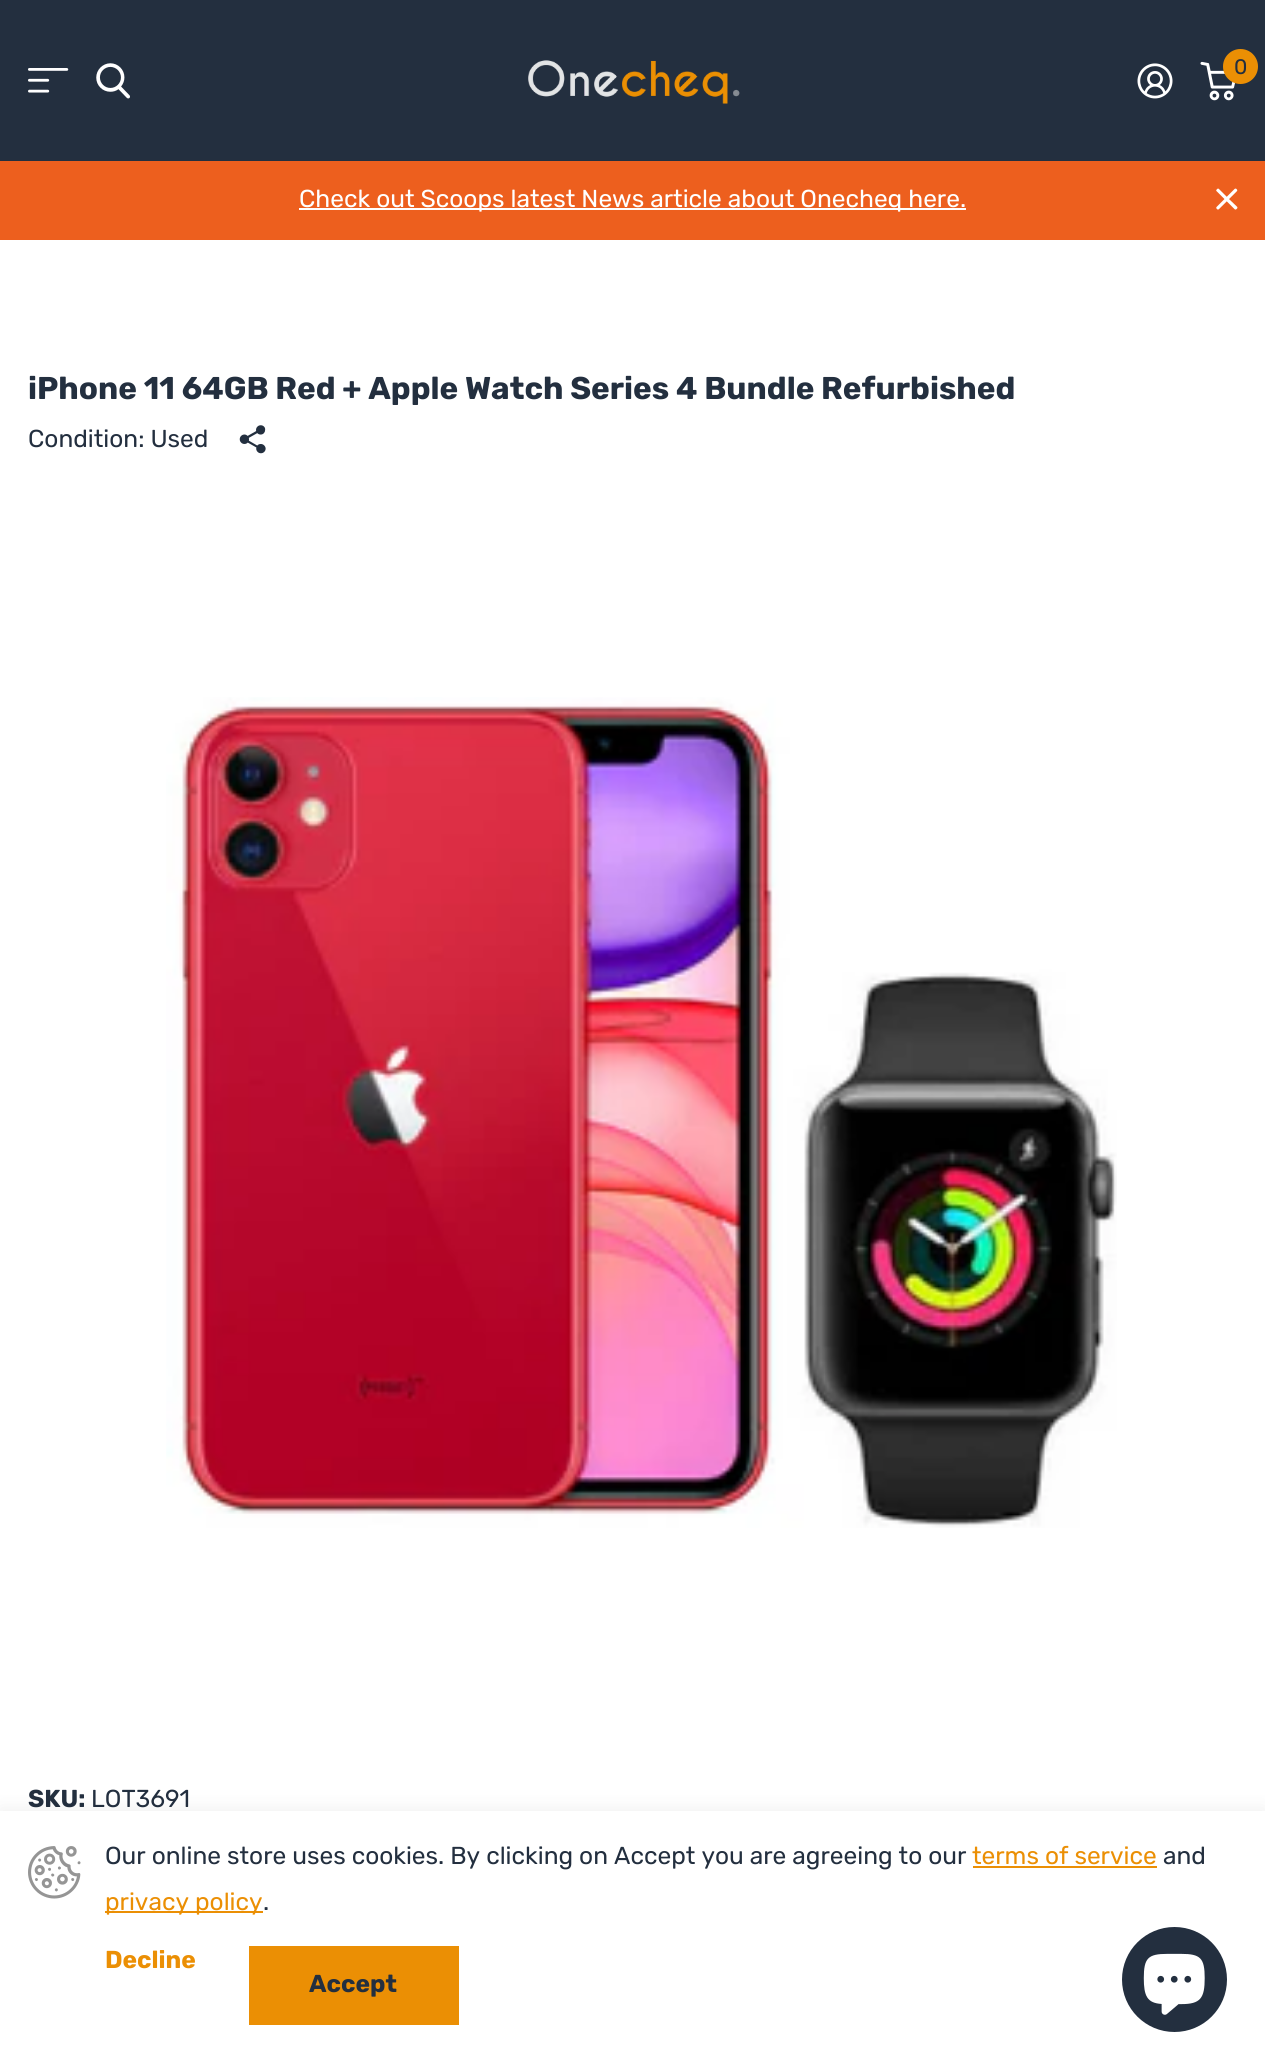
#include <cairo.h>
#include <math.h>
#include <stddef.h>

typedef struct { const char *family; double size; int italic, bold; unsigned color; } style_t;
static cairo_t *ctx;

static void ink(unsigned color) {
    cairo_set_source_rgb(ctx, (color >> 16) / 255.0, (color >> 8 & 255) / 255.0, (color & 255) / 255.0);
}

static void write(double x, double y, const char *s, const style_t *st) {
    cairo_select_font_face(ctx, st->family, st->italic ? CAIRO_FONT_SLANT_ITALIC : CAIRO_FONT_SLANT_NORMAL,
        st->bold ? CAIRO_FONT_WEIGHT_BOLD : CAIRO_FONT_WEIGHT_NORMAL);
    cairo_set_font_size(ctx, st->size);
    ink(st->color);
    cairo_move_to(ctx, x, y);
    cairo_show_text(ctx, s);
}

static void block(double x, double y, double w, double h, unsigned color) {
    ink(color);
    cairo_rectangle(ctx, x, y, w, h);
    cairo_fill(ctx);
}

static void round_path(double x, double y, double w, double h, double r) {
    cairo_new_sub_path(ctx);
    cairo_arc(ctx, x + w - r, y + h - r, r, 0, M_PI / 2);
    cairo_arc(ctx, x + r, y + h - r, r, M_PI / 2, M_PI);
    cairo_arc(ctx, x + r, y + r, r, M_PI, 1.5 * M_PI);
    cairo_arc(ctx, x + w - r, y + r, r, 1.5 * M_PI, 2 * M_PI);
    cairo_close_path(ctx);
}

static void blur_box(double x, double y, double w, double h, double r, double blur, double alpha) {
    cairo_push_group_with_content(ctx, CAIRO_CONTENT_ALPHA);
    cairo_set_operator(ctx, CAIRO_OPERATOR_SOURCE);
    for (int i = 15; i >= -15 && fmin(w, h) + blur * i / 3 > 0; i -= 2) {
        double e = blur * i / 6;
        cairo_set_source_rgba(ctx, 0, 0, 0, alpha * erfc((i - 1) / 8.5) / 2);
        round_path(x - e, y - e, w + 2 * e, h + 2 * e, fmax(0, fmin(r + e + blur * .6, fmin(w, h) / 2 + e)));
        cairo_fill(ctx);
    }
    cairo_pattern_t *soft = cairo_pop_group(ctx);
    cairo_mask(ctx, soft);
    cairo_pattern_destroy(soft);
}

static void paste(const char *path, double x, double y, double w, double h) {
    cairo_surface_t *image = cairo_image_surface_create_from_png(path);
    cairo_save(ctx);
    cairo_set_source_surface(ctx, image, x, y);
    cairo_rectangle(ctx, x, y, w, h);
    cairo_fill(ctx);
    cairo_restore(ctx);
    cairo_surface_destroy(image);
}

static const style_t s1 = {"Rubik", 21, 0, 0, 0x232f3f};
static const style_t s2 = {"Rubik", 24.5, 0, 0, 0xffffff};
static const style_t s3 = {"Rubik", 31.5, 0, 1, 0x232f3f};
static const style_t s4 = {"Rubik", 24.5, 0, 0, 0x232f3f};
static const style_t s5 = {"Rubik", 24.5, 0, 1, 0x232f3f};
static const style_t s6 = {"Rubik", 24.5, 0, 0, 0xeb8f04};
static const style_t s7 = {"Rubik", 24.5, 0, 1, 0xeb8f04};

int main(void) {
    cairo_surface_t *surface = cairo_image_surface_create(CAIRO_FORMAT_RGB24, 1265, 2067);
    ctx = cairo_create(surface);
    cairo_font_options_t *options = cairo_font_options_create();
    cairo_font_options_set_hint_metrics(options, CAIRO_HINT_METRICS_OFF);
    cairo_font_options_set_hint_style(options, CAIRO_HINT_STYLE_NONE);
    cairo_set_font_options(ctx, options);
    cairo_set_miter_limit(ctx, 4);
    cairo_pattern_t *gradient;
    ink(0xffffff);
    cairo_paint(ctx);
    block(0, 0, 1265, 161, 0x232f3f);
    paste("pic1.png", 28, 68, 41, 25);
    paste("pic2.png", 96, 63, 34, 36);
    paste("pic3.png", 528, 60, 212, 44);
    paste("pic4.png", 1137, 63, 36, 36);
    paste("pic5.png", 1200, 61, 35, 40);
    ink(0xeb8f04);
    cairo_arc(ctx, 1240.5, 66.5, 17.5, 0, 2 * M_PI);
    cairo_fill(ctx);
    write(1234, 74, "0", &s1);
    gradient = cairo_pattern_create_linear(913, 535, 352, -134);
    cairo_pattern_add_color_stop_rgba(gradient, 1, 0.929, 0.373, 0.118, 1);
    cairo_pattern_add_color_stop_rgba(gradient, 1, 0.937, 0.702, 0.298, 1);
    cairo_set_source(ctx, gradient);
    cairo_pattern_destroy(gradient);
    cairo_rectangle(ctx, 0, 161, 1265, 79);
    cairo_fill(ctx);
    block(299, 208, 667, 2, 0xffffff);
    write(299, 207, "Check out Scoops latest News article about Onecheq here.", &s2);
    paste("pic6.png", 1216, 188, 22, 22);
    write(28, 399, "iPhone 11 64GB Red + Apple Watch Series 4 Bundle Refurbished", &s3);
    write(28, 447, "Condition: Used", &s4);
    paste("pic7.png", 239, 425, 27, 29);
    paste("pic8.png", 166, 697, 951, 831);
    write(28, 1807, "SKU:", &s5);
    write(91, 1807, "LOT3691", &s4);
    ink(0x000000);
    blur_box(0, 1808, 1265, 257, 0, 9, 0.06);
    block(0, 1811, 1265, 256, 0xffffff);
    paste("pic9.png", 28, 1846, 53, 53);
    write(105, 1864, "Our online store uses cookies. By clicking on Accept you are agreeing to our", &s4);
    write(972, 1864, "terms of service", &s6);
    block(973, 1866, 184, 2, 0xeb8f04);
    write(1163, 1864, "and", &s4);
    block(105, 1911, 158, 2, 0xeb8f04);
    write(105, 1910, "privacy policy", &s6);
    write(263, 1910, ".", &s4);
    write(105, 1968, "Decline", &s7);
    block(249, 1946, 210, 79, 0xeb8f04);
    write(309, 1992, "Accept", &s5);
    cairo_new_path(ctx);
    cairo_arc(ctx, 1174.5, 1979.5, 52.5, 0, 2 * M_PI);
    cairo_fill(ctx);
    paste("pic10.png", 1143, 1953, 62, 62);
    cairo_surface_write_to_png(surface, "screenshot.png");
    cairo_font_options_destroy(options);
    cairo_destroy(ctx);
    cairo_surface_destroy(surface);
    return 0;
}
